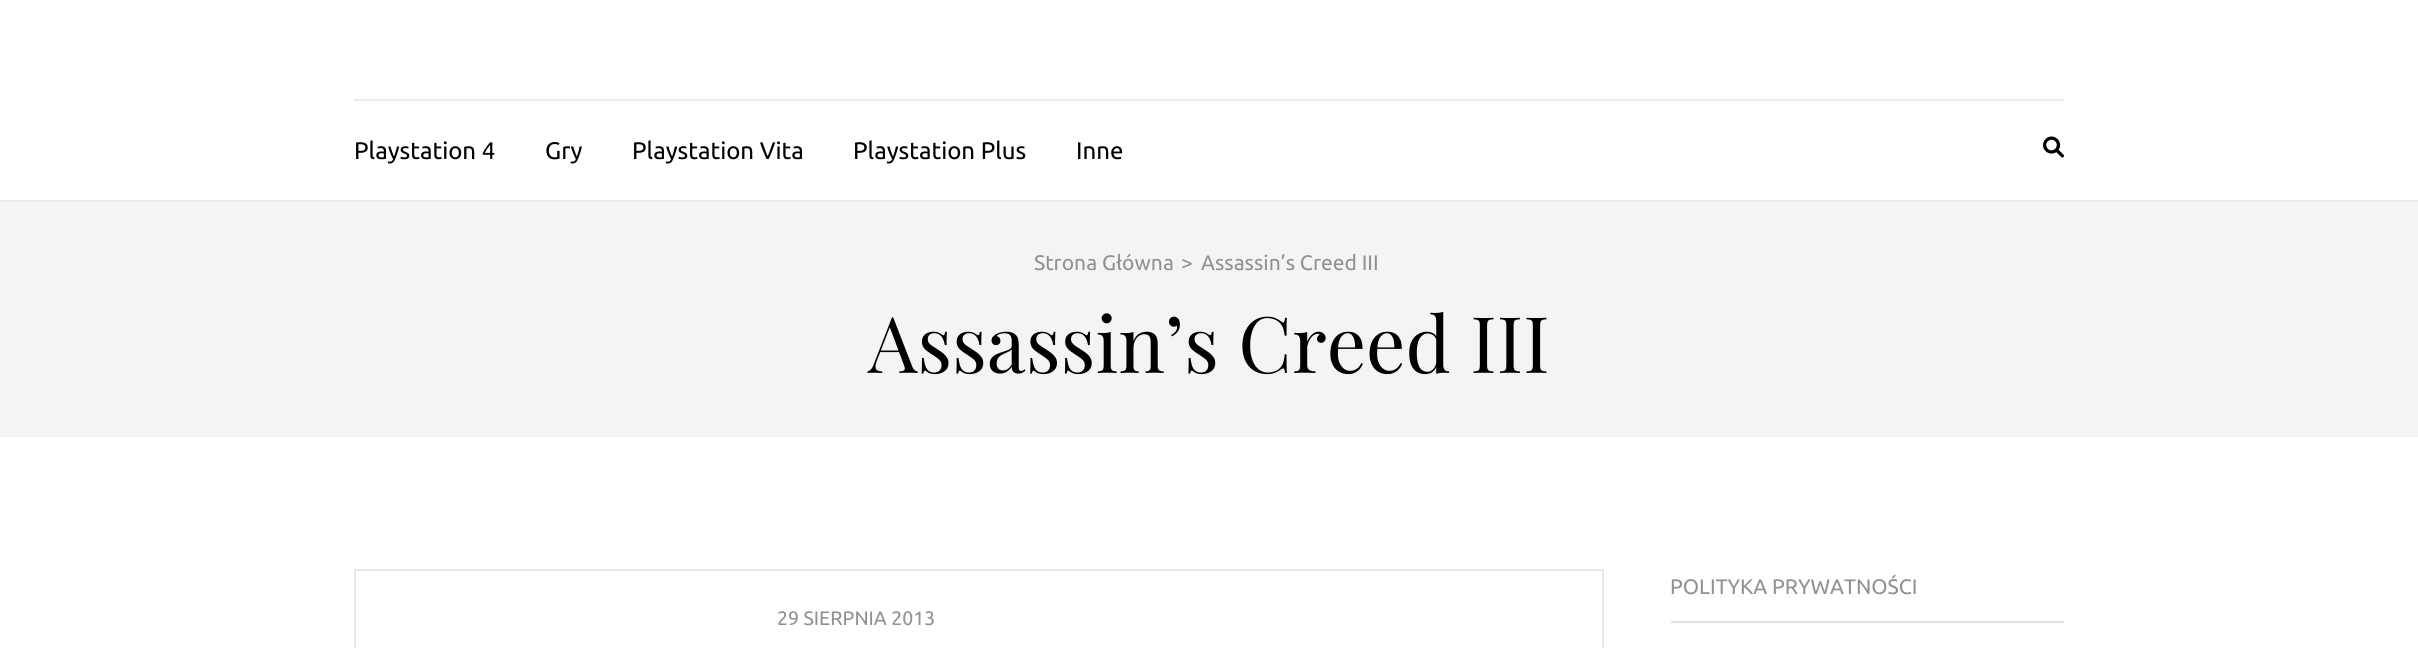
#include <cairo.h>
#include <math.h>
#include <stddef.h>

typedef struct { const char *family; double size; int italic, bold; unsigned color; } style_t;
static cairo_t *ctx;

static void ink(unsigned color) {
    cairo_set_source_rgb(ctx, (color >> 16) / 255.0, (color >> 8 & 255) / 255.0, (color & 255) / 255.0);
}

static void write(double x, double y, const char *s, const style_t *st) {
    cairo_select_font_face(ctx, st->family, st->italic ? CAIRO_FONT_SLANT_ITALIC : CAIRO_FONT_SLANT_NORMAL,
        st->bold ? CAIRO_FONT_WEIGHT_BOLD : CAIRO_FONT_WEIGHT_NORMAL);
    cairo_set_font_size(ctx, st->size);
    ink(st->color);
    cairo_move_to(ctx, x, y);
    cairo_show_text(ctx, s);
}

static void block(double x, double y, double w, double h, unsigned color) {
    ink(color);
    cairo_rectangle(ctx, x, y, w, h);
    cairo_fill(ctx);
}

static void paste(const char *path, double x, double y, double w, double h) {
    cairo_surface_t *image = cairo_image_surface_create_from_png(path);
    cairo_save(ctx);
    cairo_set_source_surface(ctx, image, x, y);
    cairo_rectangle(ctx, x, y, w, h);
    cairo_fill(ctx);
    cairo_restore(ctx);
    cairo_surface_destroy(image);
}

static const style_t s1 = {"Ubuntu", 24, 0, 0, 0x000000};
static const style_t s2 = {"Ubuntu", 21, 0, 0, 0x919191};
static const style_t s3 = {"Playfair Display", 78, 0, 0, 0x000000};
static const style_t s4 = {"Ubuntu", 19.5, 0, 0, 0x919191};

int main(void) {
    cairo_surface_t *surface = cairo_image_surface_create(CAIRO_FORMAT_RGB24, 2418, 648);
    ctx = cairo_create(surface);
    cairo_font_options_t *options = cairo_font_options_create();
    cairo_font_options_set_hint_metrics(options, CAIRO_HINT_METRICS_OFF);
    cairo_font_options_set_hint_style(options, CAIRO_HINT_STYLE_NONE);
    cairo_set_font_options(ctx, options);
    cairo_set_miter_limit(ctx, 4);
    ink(0xffffff);
    cairo_paint(ctx);
    block(354, 99, 1710, 2, 0xebebeb);
    write(354, 159, "Playstation 4", &s1);
    write(545, 159, "Gry", &s1);
    write(632, 159, "Playstation Vita", &s1);
    write(853, 159, "Playstation Plus", &s1);
    write(1076, 159, "Inne", &s1);
    paste("pic1.png", 2043, 136, 21, 22);
    block(0, 202, 2418, 235, 0xf4f4f4);
    block(0, 200, 2418, 2, 0xebebeb);
    write(1034, 270, "Strona Główna", &s2);
    write(1181, 270, ">", &s2);
    write(1201, 270, "Assassin’s Creed III", &s2);
    write(868, 373, "Assassin’s Creed III", &s3);
    block(1671, 621, 393, 2, 0xe3e3e3);
    write(1670, 594, "POLITYKA PRYWATNOŚCI", &s2);
    cairo_rectangle(ctx, 355, 570, 1248, 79);
    ink(0xe8e8e8);
    cairo_stroke(ctx);
    write(777, 625, "29 SIERPNIA 2013", &s4);
    cairo_surface_write_to_png(surface, "screenshot.png");
    cairo_font_options_destroy(options);
    cairo_destroy(ctx);
    cairo_surface_destroy(surface);
    return 0;
}
